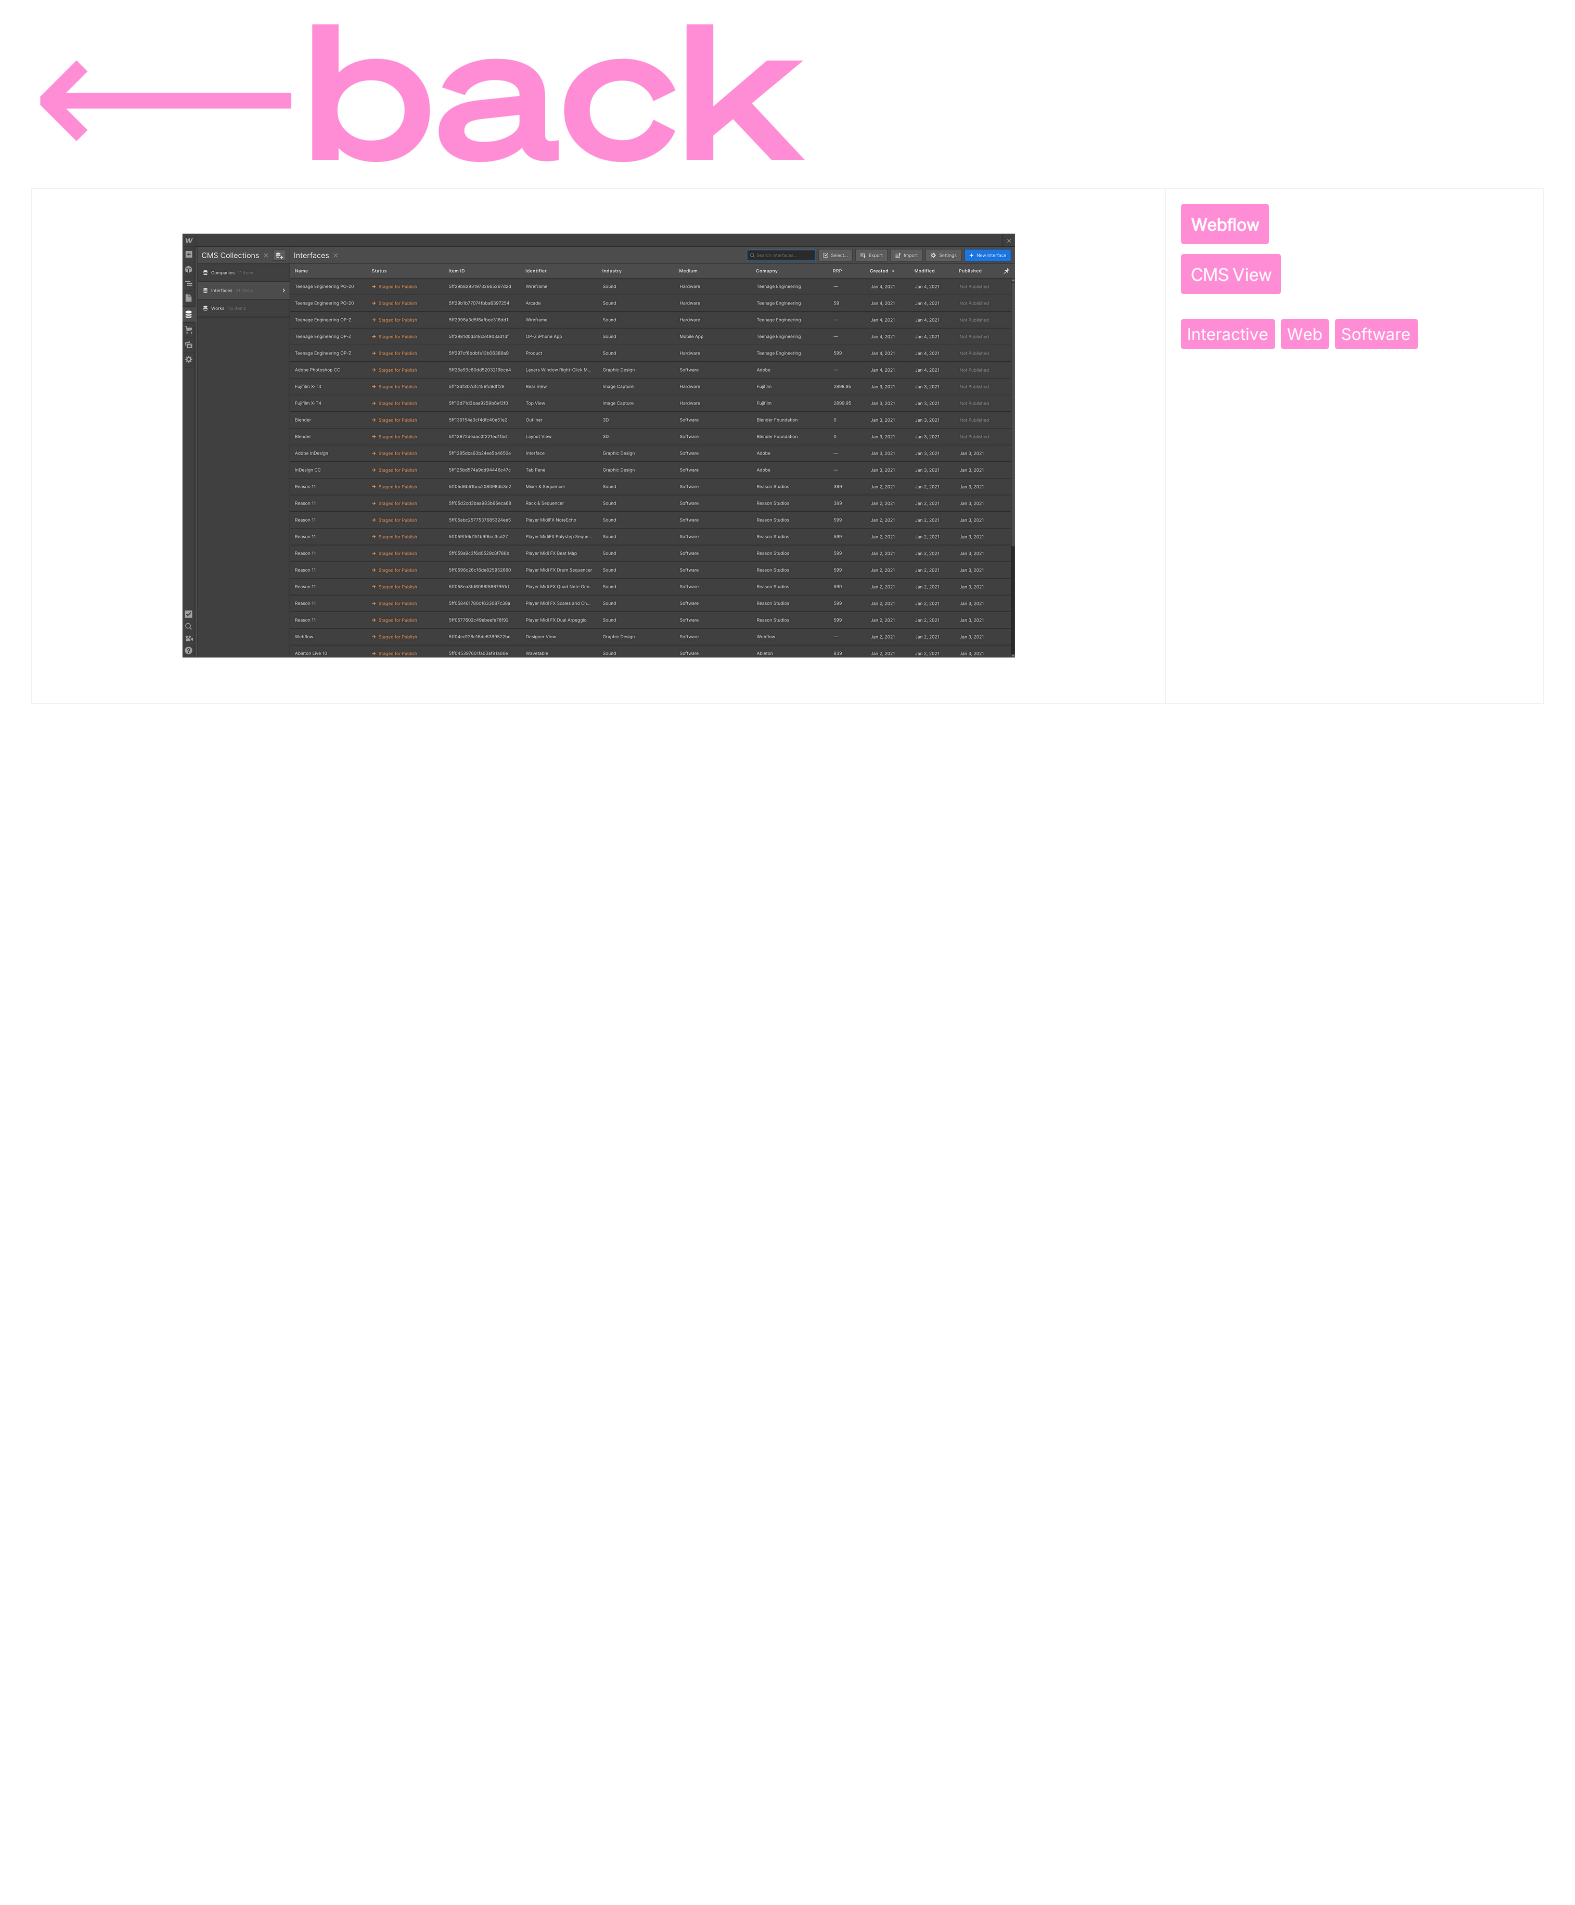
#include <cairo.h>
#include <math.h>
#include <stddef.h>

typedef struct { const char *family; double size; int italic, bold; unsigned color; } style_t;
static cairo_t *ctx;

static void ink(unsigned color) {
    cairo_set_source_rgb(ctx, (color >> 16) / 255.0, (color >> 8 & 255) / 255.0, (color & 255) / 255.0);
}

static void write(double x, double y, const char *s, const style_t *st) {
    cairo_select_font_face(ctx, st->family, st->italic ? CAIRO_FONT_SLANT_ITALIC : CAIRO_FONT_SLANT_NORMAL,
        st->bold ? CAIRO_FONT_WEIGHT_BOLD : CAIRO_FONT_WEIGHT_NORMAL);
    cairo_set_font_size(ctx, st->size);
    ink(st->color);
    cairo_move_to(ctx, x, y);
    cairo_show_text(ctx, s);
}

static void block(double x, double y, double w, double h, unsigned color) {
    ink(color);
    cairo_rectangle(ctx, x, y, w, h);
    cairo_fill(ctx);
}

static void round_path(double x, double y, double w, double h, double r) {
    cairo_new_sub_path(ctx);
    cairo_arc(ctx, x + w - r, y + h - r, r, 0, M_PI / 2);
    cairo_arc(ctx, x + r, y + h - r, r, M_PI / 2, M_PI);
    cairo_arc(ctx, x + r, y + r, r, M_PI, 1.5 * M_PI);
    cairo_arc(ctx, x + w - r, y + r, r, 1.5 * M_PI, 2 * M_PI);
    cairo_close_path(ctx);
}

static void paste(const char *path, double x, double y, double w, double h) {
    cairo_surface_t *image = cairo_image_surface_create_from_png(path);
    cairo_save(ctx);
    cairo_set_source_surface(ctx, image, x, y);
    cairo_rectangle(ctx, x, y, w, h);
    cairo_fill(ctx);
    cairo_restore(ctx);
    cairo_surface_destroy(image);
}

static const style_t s1 = {"DejaVu Sans", 189, 0, 0, 0xff8dd5};
static const style_t s2 = {"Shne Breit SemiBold", 189, 0, 0, 0xff8dd5};
static const style_t s3 = {"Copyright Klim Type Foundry", 17.5, 0, 1, 0xffffff};
static const style_t s4 = {"Copyright Klim Type Foundry", 18, 0, 0, 0xffffff};
static const style_t s5 = {"Inter", 16.25, 0, 0, 0xffffff};

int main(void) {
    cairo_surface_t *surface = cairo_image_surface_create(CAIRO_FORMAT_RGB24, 1575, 1905);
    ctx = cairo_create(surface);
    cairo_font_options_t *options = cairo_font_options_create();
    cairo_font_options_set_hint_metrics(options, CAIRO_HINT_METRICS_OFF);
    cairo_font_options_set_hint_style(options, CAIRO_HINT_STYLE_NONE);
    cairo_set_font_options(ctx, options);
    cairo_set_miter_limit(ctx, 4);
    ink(0xffffff);
    cairo_paint(ctx);
    write(31, 160, "⟵", &s1);
    write(302, 160, "back", &s2);
    block(31, 188, 1513, 1, 0xf1f1f1);
    block(31, 703, 1513, 1, 0xf1f1f1);
    block(31, 188, 1, 516, 0xf1f1f1);
    block(1165, 189, 1, 514, 0xf1f1f1);
    paste("pic1.png", 182, 233, 833, 425);
    block(1543, 189, 1, 514, 0xf1f1f1);
    ink(0xff8dd5);
    round_path(1181, 204, 88, 40, 2.5);
    cairo_fill(ctx);
    write(1191, 231, "Webflow", &s3);
    ink(0xff8dd5);
    round_path(1181, 254, 100, 40, 2.5);
    cairo_fill(ctx);
    write(1191, 281, "CMS View", &s4);
    ink(0xff8dd5);
    round_path(1181, 319, 94, 30, 2.5);
    cairo_fill(ctx);
    write(1187, 340, "Interactive", &s5);
    ink(0xff8dd5);
    round_path(1281, 319, 48, 30, 2.5);
    cairo_fill(ctx);
    write(1287, 340, "Web", &s5);
    ink(0xff8dd5);
    round_path(1335, 319, 83, 30, 2.5);
    cairo_fill(ctx);
    write(1341, 340, "Software", &s5);
    cairo_surface_write_to_png(surface, "screenshot.png");
    cairo_font_options_destroy(options);
    cairo_destroy(ctx);
    cairo_surface_destroy(surface);
    return 0;
}
